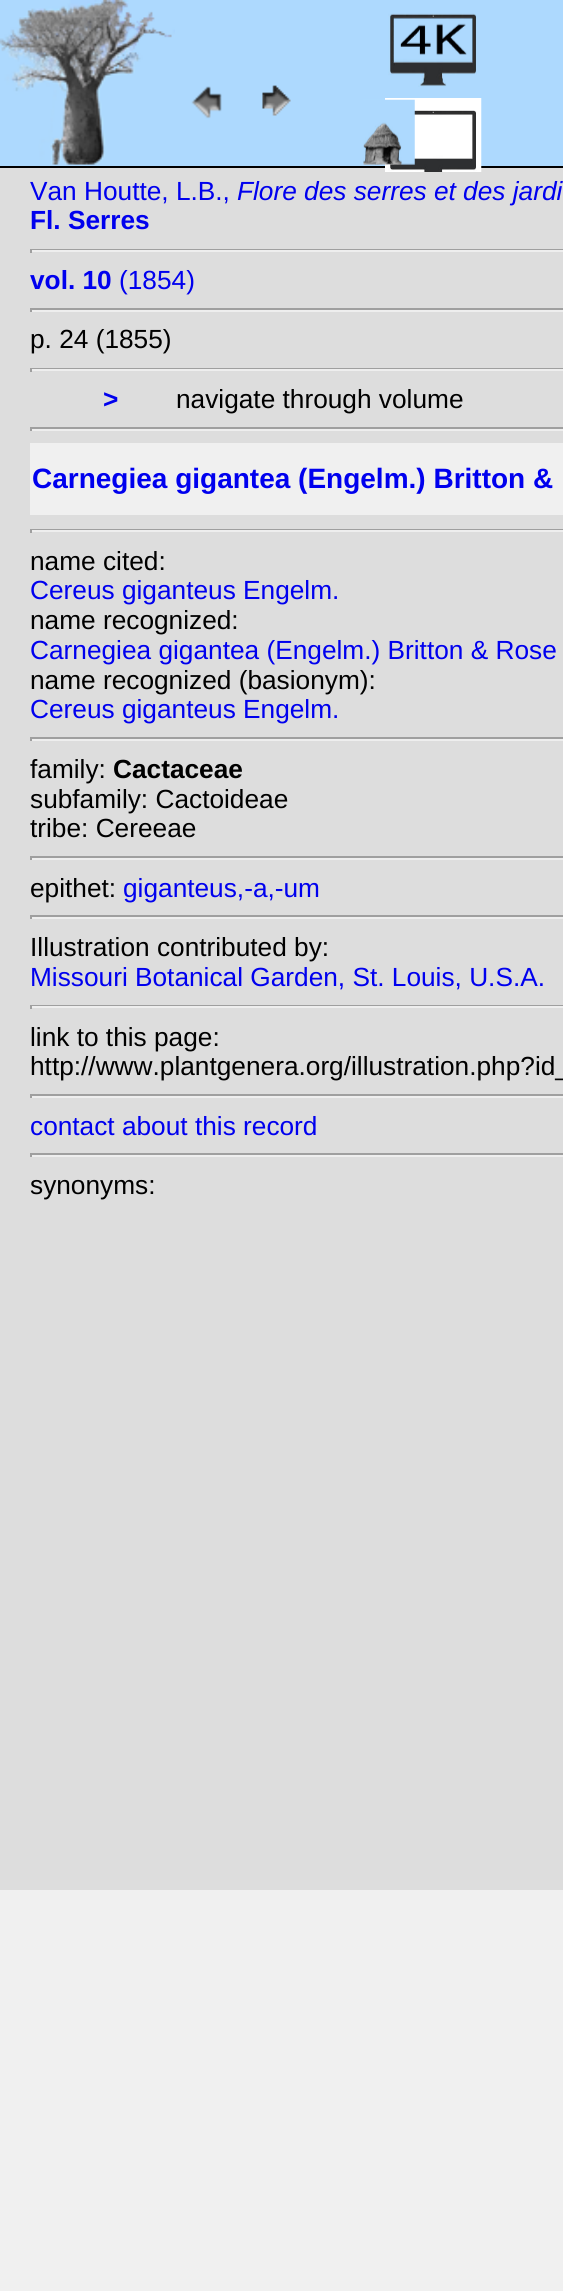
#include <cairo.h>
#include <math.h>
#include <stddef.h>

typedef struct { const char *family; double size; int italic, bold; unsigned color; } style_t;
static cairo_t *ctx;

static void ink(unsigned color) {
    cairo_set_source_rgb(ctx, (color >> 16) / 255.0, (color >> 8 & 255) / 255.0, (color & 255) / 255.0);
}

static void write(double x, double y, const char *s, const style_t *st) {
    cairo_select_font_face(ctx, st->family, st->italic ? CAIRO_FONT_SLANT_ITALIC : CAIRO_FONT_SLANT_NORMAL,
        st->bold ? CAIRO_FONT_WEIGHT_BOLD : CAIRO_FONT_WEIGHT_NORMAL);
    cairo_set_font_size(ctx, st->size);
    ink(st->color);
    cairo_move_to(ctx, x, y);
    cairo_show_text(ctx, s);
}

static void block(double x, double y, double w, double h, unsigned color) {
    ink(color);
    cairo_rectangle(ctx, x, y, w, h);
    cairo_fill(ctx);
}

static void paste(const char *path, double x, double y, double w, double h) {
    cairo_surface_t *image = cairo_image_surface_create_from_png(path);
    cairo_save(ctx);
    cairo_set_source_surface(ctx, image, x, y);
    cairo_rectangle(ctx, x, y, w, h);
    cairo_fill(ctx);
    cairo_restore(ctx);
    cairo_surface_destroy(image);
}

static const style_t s1 = {"Liberation Sans", 26.25, 0, 0, 0x0000ee};
static const style_t s2 = {"Liberation Sans", 26.25, 1, 0, 0x0000ee};
static const style_t s3 = {"Liberation Sans", 26.25, 0, 1, 0x0000ee};
static const style_t s4 = {"Liberation Sans", 26.25, 0, 0, 0x000000};
static const style_t s5 = {"Liberation Sans", 28, 0, 1, 0x0000ee};
static const style_t s6 = {"Liberation Sans", 26.25, 0, 1, 0x000000};

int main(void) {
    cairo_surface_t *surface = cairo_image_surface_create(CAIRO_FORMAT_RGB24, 563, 2291);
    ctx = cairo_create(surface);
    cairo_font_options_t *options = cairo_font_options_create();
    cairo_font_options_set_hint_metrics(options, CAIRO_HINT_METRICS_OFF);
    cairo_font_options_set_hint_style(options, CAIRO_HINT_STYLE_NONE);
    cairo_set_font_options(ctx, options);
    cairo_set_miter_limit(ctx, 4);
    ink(0xf0f0f0);
    cairo_paint(ctx);
    block(0, 168, 563, 1722, 0xdddddd);
    block(0, 0, 563, 166, 0xadd9fe);
    block(0, 166, 563, 2, 0x000000);
    paste("pic1.png", 0, 0, 175, 165);
    paste("pic2.png", 191, 86, 31, 33);
    paste("pic3.png", 262, 85, 29, 31);
    paste("pic4.png", 388, 13, 89, 74);
    paste("pic5.png", 385, 98, 97, 74);
    paste("pic6.png", 363, 99, 52, 66);
    write(30, 200, "Van Houtte, L.B.,", &s1);
    write(237, 200, "Flore des serres et des jardi", &s2);
    write(30, 229, "Fl. Serres", &s3);
    block(30, 249, 533, 1, 0x9f9f9f);
    block(30, 250, 533, 2, 0xeeeeee);
    block(30, 249, 2, 4, 0x9f9f9f);
    write(30, 289, "vol. 10", &s3);
    write(119, 289, "(1854)", &s1);
    block(30, 308, 533, 2, 0x9f9f9f);
    block(30, 310, 533, 2, 0xeeeeee);
    block(30, 308, 2, 4, 0x9f9f9f);
    write(30, 348, "p. 24 (1855)", &s4);
    block(30, 368, 533, 1, 0x9f9f9f);
    block(30, 369, 533, 2, 0xeeeeee);
    block(30, 368, 2, 4, 0x9f9f9f);
    write(103, 408, ">", &s3);
    write(176, 408, "navigate through volume", &s4);
    block(30, 427, 533, 2, 0x9f9f9f);
    block(30, 429, 533, 2, 0xeeeeee);
    block(30, 427, 2, 4, 0x9f9f9f);
    block(30, 443, 533, 72, 0xf0f0f0);
    write(32, 488, "Carnegiea gigantea (Engelm.) Britton &", &s5);
    block(30, 529, 533, 1, 0x9f9f9f);
    block(30, 530, 533, 2, 0xeeeeee);
    block(30, 529, 2, 4, 0x9f9f9f);
    write(30, 570, "name cited:", &s4);
    write(30, 599, "Cereus giganteus Engelm.", &s1);
    write(30, 629, "name recognized:", &s4);
    write(30, 659, "Carnegiea gigantea (Engelm.) Britton & Rose", &s1);
    write(30, 689, "name recognized (basionym):", &s4);
    write(30, 718, "Cereus giganteus Engelm.", &s1);
    block(30, 737, 533, 2, 0x9f9f9f);
    block(30, 739, 533, 2, 0xeeeeee);
    block(30, 737, 2, 4, 0x9f9f9f);
    write(30, 778, "family:", &s4);
    write(113, 778, "Cactaceae", &s6);
    write(30, 808, "subfamily: Cactoideae", &s4);
    write(30, 837, "tribe: Cereeae", &s4);
    block(30, 856, 533, 2, 0x9f9f9f);
    block(30, 858, 533, 2, 0xeeeeee);
    block(30, 856, 2, 4, 0x9f9f9f);
    write(30, 897, "epithet:", &s4);
    write(123, 897, "giganteus,-a,-um", &s1);
    block(30, 915, 533, 2, 0x9f9f9f);
    block(30, 917, 533, 2, 0xeeeeee);
    block(30, 915, 2, 4, 0x9f9f9f);
    write(30, 956, "Illustration contributed by:", &s4);
    write(30, 986, "Missouri Botanical Garden, St. Louis, U.S.A.", &s1);
    block(30, 1005, 533, 1, 0x9f9f9f);
    block(30, 1006, 533, 2, 0xeeeeee);
    block(30, 1005, 2, 4, 0x9f9f9f);
    write(30, 1046, "link to this page:", &s4);
    write(30, 1075, "http://www.plantgenera.org/illustration.php?id_", &s4);
    block(30, 1094, 533, 2, 0x9f9f9f);
    block(30, 1096, 533, 2, 0xeeeeee);
    block(30, 1094, 2, 4, 0x9f9f9f);
    write(30, 1135, "contact about this record", &s1);
    block(30, 1153, 533, 2, 0x9f9f9f);
    block(30, 1155, 533, 2, 0xeeeeee);
    block(30, 1153, 2, 4, 0x9f9f9f);
    write(30, 1194, "synonyms:", &s4);
    cairo_surface_write_to_png(surface, "screenshot.png");
    cairo_font_options_destroy(options);
    cairo_destroy(ctx);
    cairo_surface_destroy(surface);
    return 0;
}
